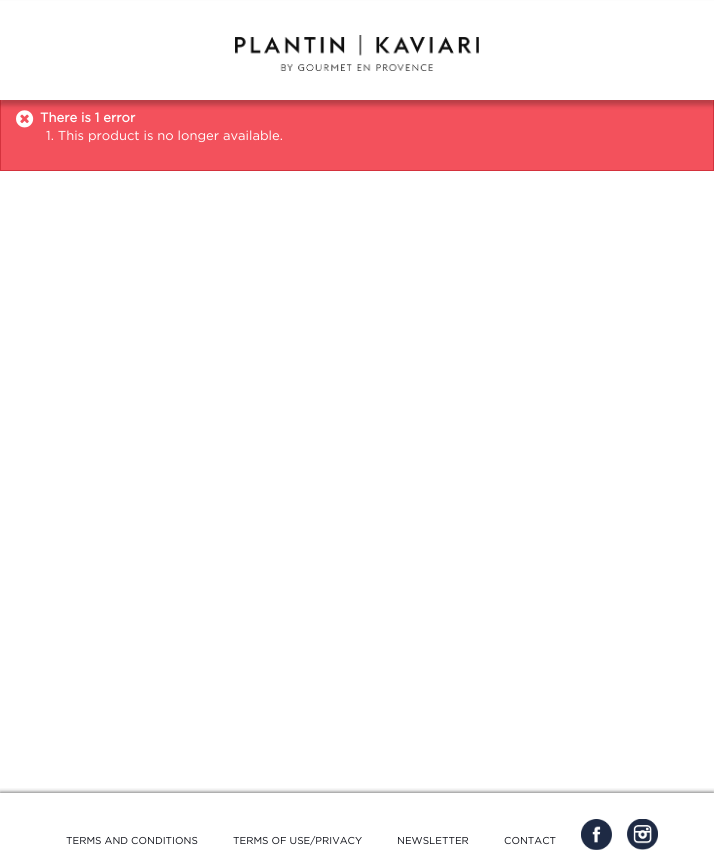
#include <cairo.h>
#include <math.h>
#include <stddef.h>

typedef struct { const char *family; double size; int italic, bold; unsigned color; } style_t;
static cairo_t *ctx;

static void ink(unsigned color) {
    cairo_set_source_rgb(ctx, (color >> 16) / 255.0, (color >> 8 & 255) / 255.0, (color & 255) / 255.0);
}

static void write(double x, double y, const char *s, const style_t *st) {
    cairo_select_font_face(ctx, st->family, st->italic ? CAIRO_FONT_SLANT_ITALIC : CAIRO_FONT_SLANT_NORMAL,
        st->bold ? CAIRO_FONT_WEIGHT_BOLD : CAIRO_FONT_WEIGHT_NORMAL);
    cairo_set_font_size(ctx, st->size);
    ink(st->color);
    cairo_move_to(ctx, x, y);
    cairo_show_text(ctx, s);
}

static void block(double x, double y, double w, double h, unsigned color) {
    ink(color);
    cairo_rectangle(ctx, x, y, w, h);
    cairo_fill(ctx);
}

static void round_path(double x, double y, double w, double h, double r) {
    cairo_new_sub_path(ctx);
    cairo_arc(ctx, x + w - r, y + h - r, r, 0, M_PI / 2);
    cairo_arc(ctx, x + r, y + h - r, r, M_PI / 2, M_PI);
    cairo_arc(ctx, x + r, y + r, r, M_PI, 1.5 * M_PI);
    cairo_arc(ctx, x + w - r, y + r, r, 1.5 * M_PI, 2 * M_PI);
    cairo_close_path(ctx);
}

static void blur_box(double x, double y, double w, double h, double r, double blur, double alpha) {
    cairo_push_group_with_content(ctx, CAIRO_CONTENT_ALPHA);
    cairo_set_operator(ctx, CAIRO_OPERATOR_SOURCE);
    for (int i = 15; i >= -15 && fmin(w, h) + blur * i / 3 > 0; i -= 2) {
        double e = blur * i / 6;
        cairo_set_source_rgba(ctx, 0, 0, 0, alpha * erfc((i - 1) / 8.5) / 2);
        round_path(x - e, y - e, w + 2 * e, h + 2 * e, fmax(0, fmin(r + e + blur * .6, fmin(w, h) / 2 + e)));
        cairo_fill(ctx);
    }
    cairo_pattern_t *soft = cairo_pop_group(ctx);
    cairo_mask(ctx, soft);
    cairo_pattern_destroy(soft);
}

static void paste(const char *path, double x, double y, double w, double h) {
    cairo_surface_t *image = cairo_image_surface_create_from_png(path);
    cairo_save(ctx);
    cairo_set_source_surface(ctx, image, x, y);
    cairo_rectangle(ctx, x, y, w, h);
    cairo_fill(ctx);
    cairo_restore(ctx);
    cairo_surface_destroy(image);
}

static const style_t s1 = {"Gotham", 13, 0, 1, 0xffffff};
static const style_t s2 = {"Gotham", 13, 0, 0, 0xffffff};
static const style_t s3 = {"Gotham", 10, 0, 0, 0x0d0f17};

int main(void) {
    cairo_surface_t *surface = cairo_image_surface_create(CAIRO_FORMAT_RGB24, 714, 867);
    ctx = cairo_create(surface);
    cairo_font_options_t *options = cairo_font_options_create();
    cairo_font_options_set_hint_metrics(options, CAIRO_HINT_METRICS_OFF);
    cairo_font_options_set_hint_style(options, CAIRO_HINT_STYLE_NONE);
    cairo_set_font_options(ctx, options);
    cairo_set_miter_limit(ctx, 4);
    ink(0xffffff);
    cairo_paint(ctx);
    block(1, 100, 712, 70, 0xf3515c);
    cairo_rectangle(ctx, 0.5, 94.5, 713, 76);
    ink(0xd4323d);
    cairo_set_line_width(ctx, 1);
    cairo_stroke(ctx);
    paste("pic2.png", 16, 110, 18, 18);
    ink(0x000000);
    blur_box(0, 5, 714, 100, 0, 2.5, 0.25);
    block(0, 1, 714, 99, 0xffffff);
    paste("pic1.png", 235, 35, 244, 36);
    write(40, 122, "There is 1 error", &s1);
    write(46, 140, "1. This product is no longer available.", &s2);
    cairo_save(ctx);
    cairo_rectangle(ctx, 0, 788, 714, 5);
    cairo_clip(ctx);
    ink(0x000000);
    blur_box(0, 793, 714, 74, 0, 2.5, 0.75);
    cairo_restore(ctx);
    write(66, 844, "TERMS AND CONDITIONS", &s3);
    write(233, 844, "TERMS OF USE/PRIVACY", &s3);
    write(397, 844, "NEWSLETTER", &s3);
    write(504, 844, "CONTACT", &s3);
    paste("pic3.png", 581, 819, 31, 31);
    paste("pic4.png", 627, 819, 31, 31);
    cairo_surface_write_to_png(surface, "screenshot.png");
    cairo_font_options_destroy(options);
    cairo_destroy(ctx);
    cairo_surface_destroy(surface);
    return 0;
}
